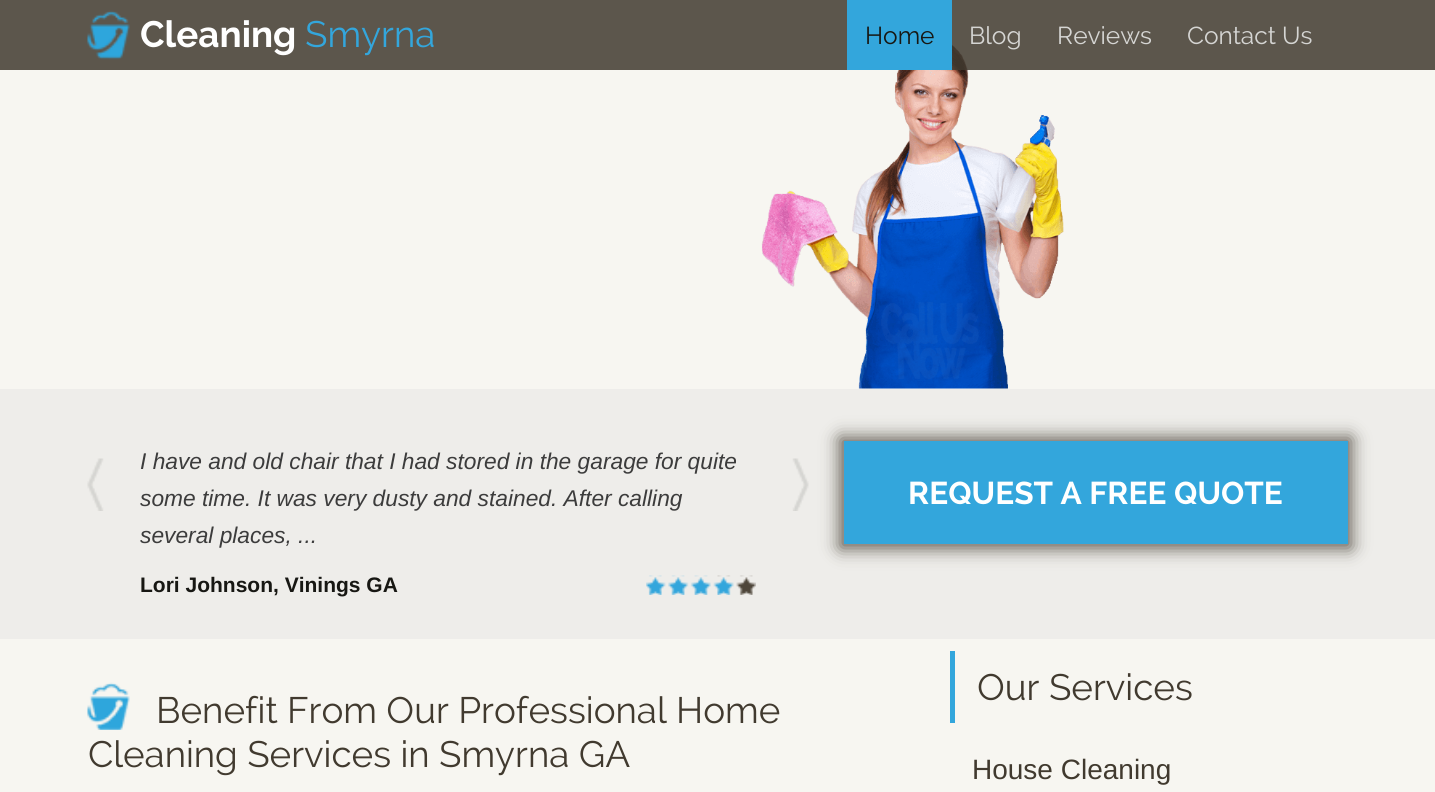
#include <cairo.h>
#include <math.h>
#include <stddef.h>

typedef struct { const char *family; double size; int italic, bold; unsigned color; } style_t;
static cairo_t *ctx;

static void ink(unsigned color) {
    cairo_set_source_rgb(ctx, (color >> 16) / 255.0, (color >> 8 & 255) / 255.0, (color & 255) / 255.0);
}

static void write(double x, double y, const char *s, const style_t *st) {
    cairo_select_font_face(ctx, st->family, st->italic ? CAIRO_FONT_SLANT_ITALIC : CAIRO_FONT_SLANT_NORMAL,
        st->bold ? CAIRO_FONT_WEIGHT_BOLD : CAIRO_FONT_WEIGHT_NORMAL);
    cairo_set_font_size(ctx, st->size);
    ink(st->color);
    cairo_move_to(ctx, x, y);
    cairo_show_text(ctx, s);
}

static void block(double x, double y, double w, double h, unsigned color) {
    ink(color);
    cairo_rectangle(ctx, x, y, w, h);
    cairo_fill(ctx);
}

static void round_path(double x, double y, double w, double h, double r) {
    cairo_new_sub_path(ctx);
    cairo_arc(ctx, x + w - r, y + h - r, r, 0, M_PI / 2);
    cairo_arc(ctx, x + r, y + h - r, r, M_PI / 2, M_PI);
    cairo_arc(ctx, x + r, y + r, r, M_PI, 1.5 * M_PI);
    cairo_arc(ctx, x + w - r, y + r, r, 1.5 * M_PI, 2 * M_PI);
    cairo_close_path(ctx);
}

static void blur_box(double x, double y, double w, double h, double r, double blur, double alpha) {
    cairo_push_group_with_content(ctx, CAIRO_CONTENT_ALPHA);
    cairo_set_operator(ctx, CAIRO_OPERATOR_SOURCE);
    for (int i = 15; i >= -15 && fmin(w, h) + blur * i / 3 > 0; i -= 2) {
        double e = blur * i / 6;
        cairo_set_source_rgba(ctx, 0, 0, 0, alpha * erfc((i - 1) / 8.5) / 2);
        round_path(x - e, y - e, w + 2 * e, h + 2 * e, fmax(0, fmin(r + e + blur * .6, fmin(w, h) / 2 + e)));
        cairo_fill(ctx);
    }
    cairo_pattern_t *soft = cairo_pop_group(ctx);
    cairo_mask(ctx, soft);
    cairo_pattern_destroy(soft);
}

static void paste(const char *path, double x, double y, double w, double h) {
    cairo_surface_t *image = cairo_image_surface_create_from_png(path);
    cairo_save(ctx);
    cairo_set_source_surface(ctx, image, x, y);
    cairo_rectangle(ctx, x, y, w, h);
    cairo_fill(ctx);
    cairo_restore(ctx);
    cairo_surface_destroy(image);
}

static const style_t s1 = {"Raleway", 36.75, 0, 1, 0xffffff};
static const style_t s2 = {"Raleway", 36.75, 0, 0, 0x33a6dc};
static const style_t s3 = {"Raleway", 24.5, 0, 0, 0x171713};
static const style_t s4 = {"Raleway", 24.5, 0, 0, 0xd5d5d3};
static const style_t s5 = {"Liberation Sans", 22.75, 1, 0, 0x3c3c3c};
static const style_t s6 = {"Liberation Sans", 21, 0, 1, 0x171713};
static const style_t s7 = {"Raleway", 31.5, 0, 1, 0xffffff};
static const style_t s8 = {"Raleway", 36.75, 0, 0, 0x413a2f};
static const style_t s9 = {"Liberation Sans", 28, 0, 0, 0x413a2f};

int main(void) {
    cairo_surface_t *surface = cairo_image_surface_create(CAIRO_FORMAT_RGB24, 1435, 792);
    ctx = cairo_create(surface);
    cairo_font_options_t *options = cairo_font_options_create();
    cairo_font_options_set_hint_metrics(options, CAIRO_HINT_METRICS_OFF);
    cairo_font_options_set_hint_style(options, CAIRO_HINT_STYLE_NONE);
    cairo_set_font_options(ctx, options);
    cairo_set_miter_limit(ctx, 4);
    ink(0xf7f6f1);
    cairo_paint(ctx);
    paste("pic2.png", 761, 44, 303, 345);
    cairo_set_source_rgba(ctx, 0.255, 0.227, 0.184, 0.85);
    cairo_rectangle(ctx, 0, 0, 1435, 70);
    cairo_fill(ctx);
    paste("pic1.png", 87, 10, 43, 50);
    write(140, 47, "Cleaning", &s1);
    write(305, 47, "Smyrna", &s2);
    block(847, 0, 105, 70, 0x33a6dc);
    write(865, 44, "Home", &s3);
    write(969, 44, "Blog", &s4);
    write(1057, 44, "Reviews", &s4);
    write(1187, 44, "Contact Us", &s4);
    block(0, 389, 1435, 250, 0xeeedea);
    paste("pic3.png", 87, 458, 17, 53);
    write(140, 469, "I have and old chair that I had stored in the garage for quite", &s5);
    write(140, 506, "some time. It was very dusty and stained. After calling", &s5);
    write(140, 543, "several places, ...", &s5);
    write(140, 592, "Lori Johnson, Vinings GA", &s6);
    paste("pic4.png", 646, 575, 110, 20);
    paste("pic5.png", 792, 458, 17, 53);
    ink(0x5c564c);
    blur_box(840, 438, 511, 110, 0, 9, 1);
    block(844, 441, 504, 103, 0x33a6dc);
    write(908, 504, "REQUEST A FREE QUOTE", &s7);
    paste("pic6.png", 87, 682, 43, 48);
    write(156, 723, "Benefit From Our Professional Home", &s8);
    write(88, 767, "Cleaning Services in Smyrna GA", &s8);
    block(950, 651, 5, 72, 0x33a6dc);
    write(977, 700, "Our Services", &s8);
    write(972, 779, "House Cleaning", &s9);
    cairo_surface_write_to_png(surface, "screenshot.png");
    cairo_font_options_destroy(options);
    cairo_destroy(ctx);
    cairo_surface_destroy(surface);
    return 0;
}
